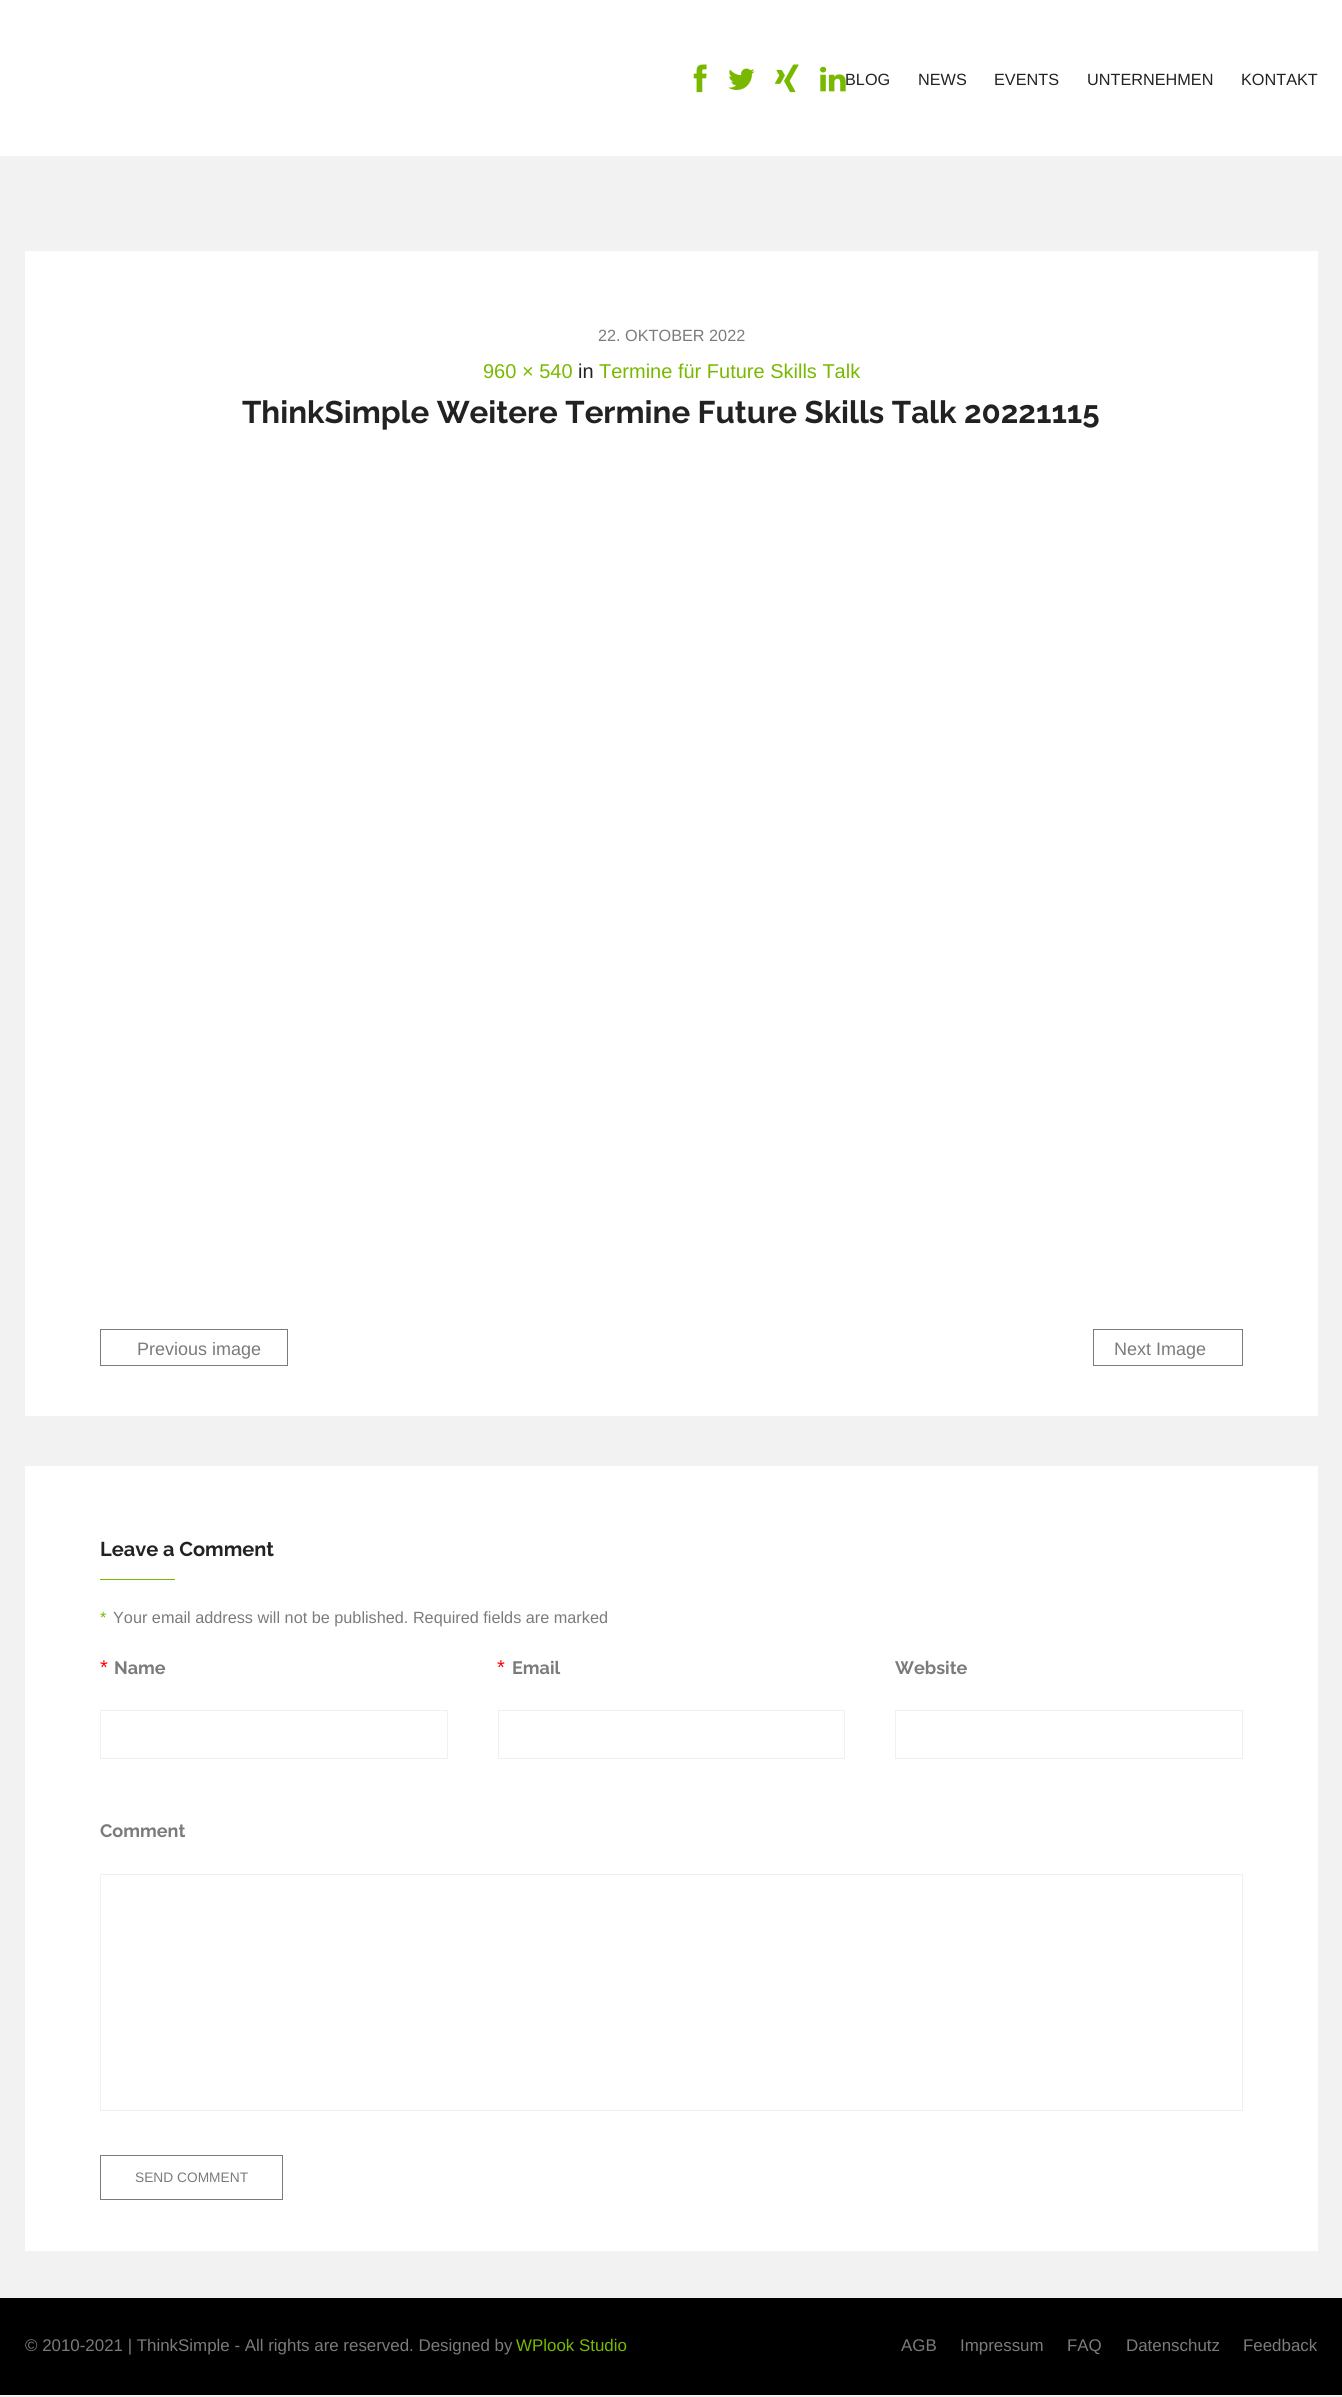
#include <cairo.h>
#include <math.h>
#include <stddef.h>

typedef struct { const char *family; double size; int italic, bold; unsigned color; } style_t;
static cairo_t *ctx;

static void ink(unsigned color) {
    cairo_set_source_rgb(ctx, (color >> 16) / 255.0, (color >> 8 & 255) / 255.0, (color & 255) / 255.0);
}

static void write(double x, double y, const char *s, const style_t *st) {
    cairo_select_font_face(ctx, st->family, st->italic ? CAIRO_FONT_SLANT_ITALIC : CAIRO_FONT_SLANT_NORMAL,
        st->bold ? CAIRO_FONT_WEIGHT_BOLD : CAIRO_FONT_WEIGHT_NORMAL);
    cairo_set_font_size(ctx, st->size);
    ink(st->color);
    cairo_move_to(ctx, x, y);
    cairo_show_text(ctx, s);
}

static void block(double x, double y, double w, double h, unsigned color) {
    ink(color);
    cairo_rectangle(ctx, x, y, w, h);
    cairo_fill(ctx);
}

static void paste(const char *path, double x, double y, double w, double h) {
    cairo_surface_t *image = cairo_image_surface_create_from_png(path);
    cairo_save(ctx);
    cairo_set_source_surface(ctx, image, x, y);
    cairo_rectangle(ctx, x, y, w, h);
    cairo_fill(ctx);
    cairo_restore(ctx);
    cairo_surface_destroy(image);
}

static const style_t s1 = {"Liberation Sans", 16.25, 0, 0, 0x222222};
static const style_t s2 = {"Liberation Sans", 16.25, 0, 0, 0x7b7b7b};
static const style_t s3 = {"Liberation Sans", 20, 0, 0, 0x78b900};
static const style_t s4 = {"Liberation Sans", 20, 0, 0, 0x222222};
static const style_t s5 = {"Raleway", 31.25, 0, 1, 0x222222};
static const style_t s6 = {"Liberation Sans", 18, 0, 0, 0x7b7b7b};
static const style_t s7 = {"Raleway", 20, 0, 1, 0x222222};
static const style_t s8 = {"Liberation Sans", 16.25, 0, 0, 0x78b900};
static const style_t s9 = {"Liberation Sans", 20, 0, 0, 0xff0000};
static const style_t s10 = {"Raleway", 18, 0, 1, 0x7b7b7b};
static const style_t s11 = {"Liberation Sans", 13.75, 0, 0, 0x7b7b7b};
static const style_t s12 = {"Liberation Sans", 16.9, 0, 0, 0x7b7b7b};
static const style_t s13 = {"Liberation Sans", 16.9, 0, 0, 0x78b900};

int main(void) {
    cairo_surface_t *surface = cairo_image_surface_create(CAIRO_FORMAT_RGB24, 1342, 2397);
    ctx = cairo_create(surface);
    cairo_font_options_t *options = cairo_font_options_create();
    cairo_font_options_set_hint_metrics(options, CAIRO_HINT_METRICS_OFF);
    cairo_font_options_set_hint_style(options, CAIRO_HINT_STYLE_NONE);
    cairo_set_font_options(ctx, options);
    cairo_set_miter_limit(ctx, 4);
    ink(0xf2f2f2);
    cairo_paint(ctx);
    block(0, 0, 1342, 156, 0xffffff);
    paste("pic1.png", 693, 64, 14, 29);
    paste("pic2.png", 728, 68, 27, 22);
    paste("pic3.png", 775, 64, 24, 29);
    paste("pic4.png", 820, 66, 26, 26);
    write(845, 85, "BLOG", &s1);
    write(918, 85, "NEWS", &s1);
    write(994, 85, "EVENTS", &s1);
    write(1087, 85, "UNTERNEHMEN", &s1);
    write(1241, 85, "KONTAKT", &s1);
    block(25, 251, 1293, 1165, 0xffffff);
    write(598, 341, "22. OKTOBER 2022", &s2);
    write(483, 378, "960 × 540", &s3);
    write(578, 378, "in", &s4);
    write(599, 378, "Termine für Future Skills Talk", &s3);
    write(242, 423, "ThinkSimple Weitere Termine Future Skills Talk 20221115", &s5);
    cairo_rectangle(ctx, 100.5, 1329.5, 187, 36);
    ink(0x7b7b7b);
    cairo_set_line_width(ctx, 1);
    cairo_stroke(ctx);
    write(137, 1355, "Previous image", &s6);
    cairo_rectangle(ctx, 1093.5, 1329.5, 149, 36);
    cairo_stroke(ctx);
    write(1114, 1355, "Next Image", &s6);
    block(25, 1466, 1293, 785, 0xffffff);
    write(100, 1556, "Leave a Comment", &s7);
    block(100, 1579, 75, 1, 0x78b900);
    write(100, 1623, "*", &s8);
    write(113, 1623, "Your email address will not be published. Required fields are marked", &s2);
    write(100, 1674, "*", &s9);
    write(114, 1674, "Name", &s10);
    cairo_rectangle(ctx, 100.5, 1710.5, 347, 48);
    ink(0xf0f0f0);
    cairo_stroke(ctx);
    write(497, 1674, "*", &s9);
    write(512, 1674, "Email", &s10);
    cairo_rectangle(ctx, 498.5, 1710.5, 346, 48);
    ink(0xf0f0f0);
    cairo_stroke(ctx);
    write(895, 1674, "Website", &s10);
    cairo_rectangle(ctx, 895.5, 1710.5, 347, 48);
    ink(0xf0f0f0);
    cairo_stroke(ctx);
    write(100, 1837, "Comment", &s10);
    cairo_rectangle(ctx, 100.5, 1874.5, 1142, 236);
    ink(0xf0f0f0);
    cairo_stroke(ctx);
    cairo_rectangle(ctx, 100.5, 2155.5, 182, 44);
    ink(0x7b7b7b);
    cairo_stroke(ctx);
    write(135, 2182, "SEND COMMENT", &s11);
    block(0, 2298, 1342, 97, 0x000000);
    write(25, 2351, "© 2010-2021 | ThinkSimple - All rights are reserved. Designed by", &s12);
    write(516, 2351, "WPlook Studio", &s13);
    write(901, 2351, "AGB", &s12);
    write(960, 2351, "Impressum", &s12);
    write(1067, 2351, "FAQ", &s12);
    write(1126, 2351, "Datenschutz", &s12);
    write(1243, 2351, "Feedback", &s12);
    cairo_surface_write_to_png(surface, "screenshot.png");
    cairo_font_options_destroy(options);
    cairo_destroy(ctx);
    cairo_surface_destroy(surface);
    return 0;
}
